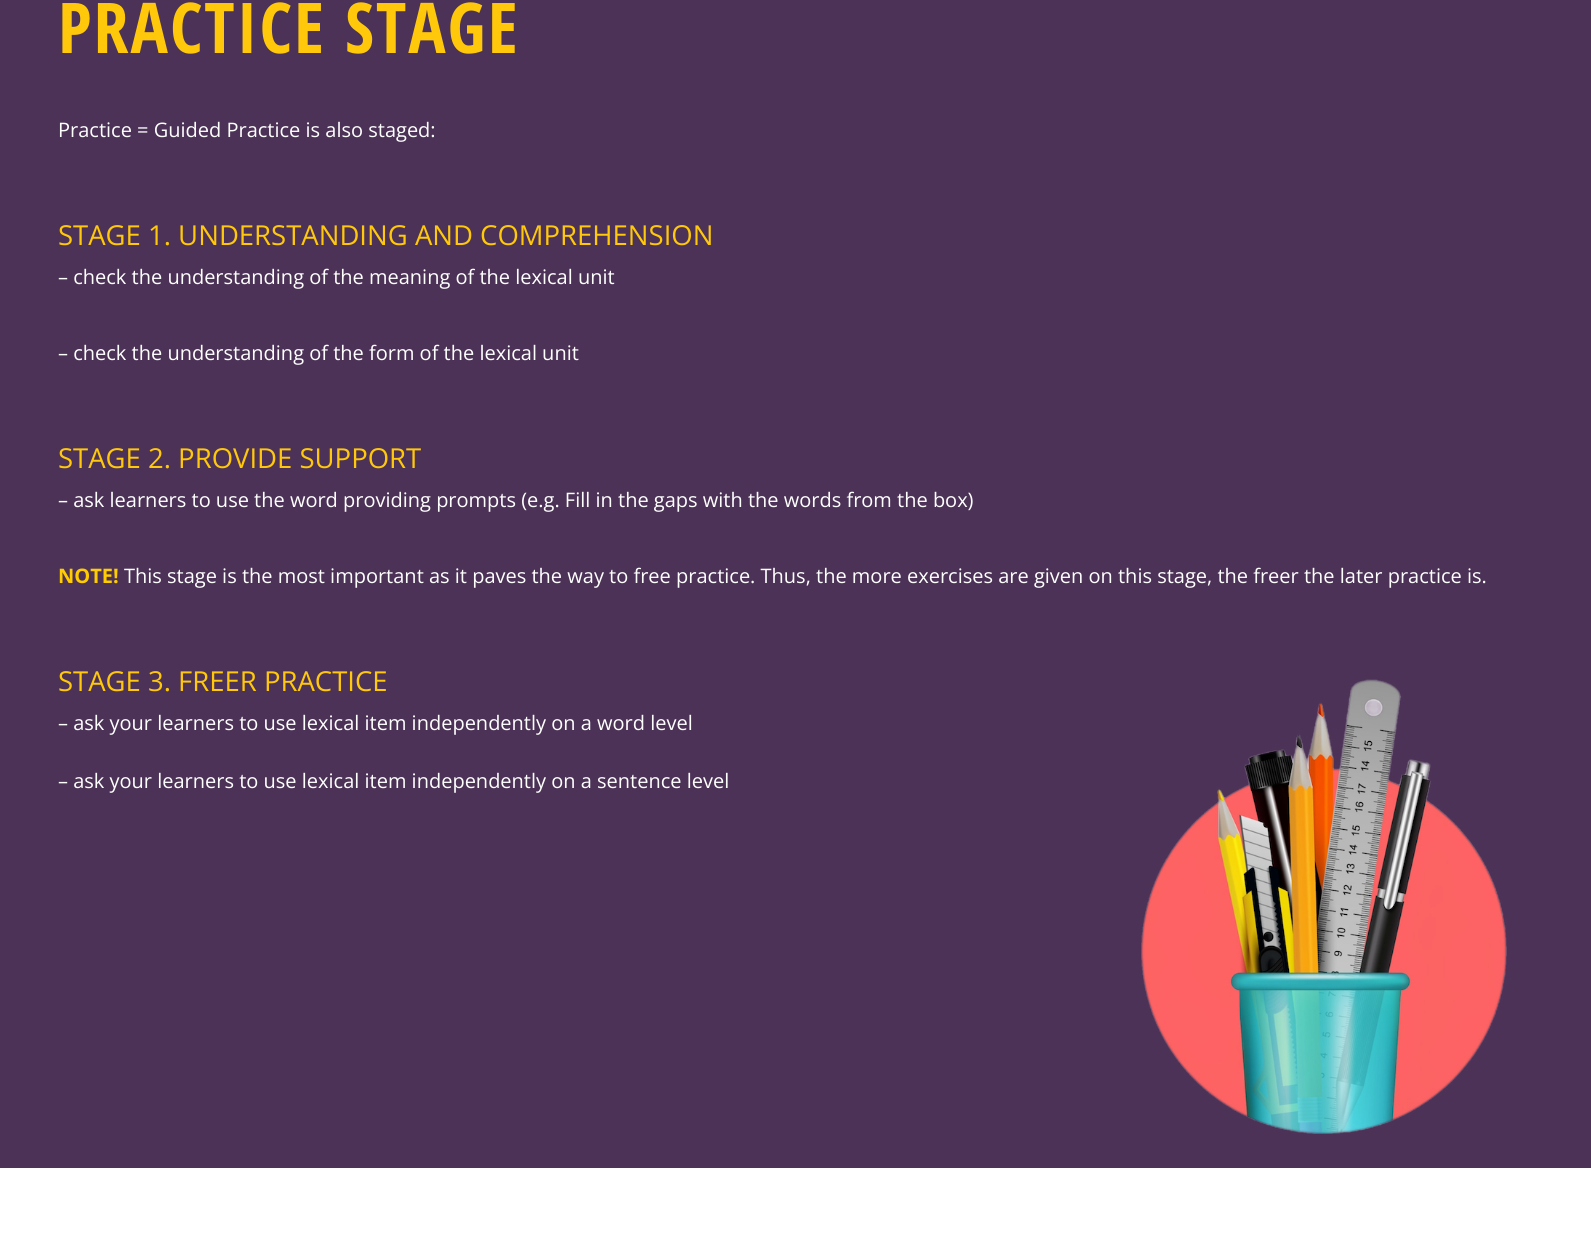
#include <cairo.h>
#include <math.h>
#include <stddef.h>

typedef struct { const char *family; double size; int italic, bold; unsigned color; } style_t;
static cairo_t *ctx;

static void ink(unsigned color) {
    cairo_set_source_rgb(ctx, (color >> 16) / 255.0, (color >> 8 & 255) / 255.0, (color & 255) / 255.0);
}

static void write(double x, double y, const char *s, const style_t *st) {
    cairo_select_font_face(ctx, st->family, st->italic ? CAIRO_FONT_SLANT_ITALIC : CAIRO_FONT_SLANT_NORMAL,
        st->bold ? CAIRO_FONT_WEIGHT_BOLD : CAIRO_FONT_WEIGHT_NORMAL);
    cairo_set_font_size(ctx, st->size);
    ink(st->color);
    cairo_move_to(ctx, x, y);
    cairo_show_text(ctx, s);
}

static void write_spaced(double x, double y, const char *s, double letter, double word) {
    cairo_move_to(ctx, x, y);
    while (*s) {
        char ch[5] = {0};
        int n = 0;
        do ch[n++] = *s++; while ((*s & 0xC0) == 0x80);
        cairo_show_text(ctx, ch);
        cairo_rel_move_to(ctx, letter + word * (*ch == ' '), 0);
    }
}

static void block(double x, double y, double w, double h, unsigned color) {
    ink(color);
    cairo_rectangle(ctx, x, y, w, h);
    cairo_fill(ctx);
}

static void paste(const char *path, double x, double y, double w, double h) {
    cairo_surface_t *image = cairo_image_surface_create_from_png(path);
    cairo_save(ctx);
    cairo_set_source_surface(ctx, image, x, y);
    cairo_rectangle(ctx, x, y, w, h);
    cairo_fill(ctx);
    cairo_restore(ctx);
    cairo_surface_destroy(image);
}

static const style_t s1 = {"Open Sans", 20, 0, 0, 0xffffff};
static const style_t s2 = {"Open Sans", 27.5, 0, 0, 0xffc80a};
static const style_t s3 = {"Open Sans", 20, 0, 1, 0xffcc00};

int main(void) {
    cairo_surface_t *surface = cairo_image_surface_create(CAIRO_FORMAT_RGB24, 1591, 1236);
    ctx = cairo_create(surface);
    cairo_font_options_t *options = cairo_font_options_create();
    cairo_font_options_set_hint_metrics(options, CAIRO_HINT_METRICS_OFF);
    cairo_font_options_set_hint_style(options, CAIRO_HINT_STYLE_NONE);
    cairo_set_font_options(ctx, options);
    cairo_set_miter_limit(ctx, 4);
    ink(0xffffff);
    cairo_paint(ctx);
    block(0, 0, 1591, 1168, 0x4b3256);
    cairo_select_font_face(ctx, "Open Sans Condensed", CAIRO_FONT_SLANT_NORMAL, CAIRO_FONT_WEIGHT_BOLD);
    cairo_set_font_size(ctx, 70);
    ink(0xffc80a);
    write_spaced(58, 53, "PRACTICE STAGE", 2, 0);
    paste("pic1.png", 1141, 679, 366, 455);
    write(58, 137, "Practice = Guided Practice is also staged:", &s1);
    write(58, 245, "STAGE 1. UNDERSTANDING AND COMPREHENSION", &s2);
    write(58, 284, "– check the understanding of the meaning of the lexical unit", &s1);
    write(58, 360, "– check the understanding of the form of the lexical unit", &s1);
    write(58, 468, "STAGE 2. PROVIDE SUPPORT", &s2);
    write(58, 507, "– ask learners to use the word providing prompts (e.g. Fill in the gaps with the words from the box)", &s1);
    write(58, 583, "NOTE!", &s3);
    write(124, 583, "This stage is the most important as it paves the way to free practice. Thus, the more exercises are given on this stage, the freer the later practice is.", &s1);
    write(58, 691, "STAGE 3. FREER PRACTICE", &s2);
    write(58, 730, "– ask your learners to use lexical item independently on a word level", &s1);
    write(58, 788, "– ask your learners to use lexical item independently on a sentence level", &s1);
    cairo_surface_write_to_png(surface, "screenshot.png");
    cairo_font_options_destroy(options);
    cairo_destroy(ctx);
    cairo_surface_destroy(surface);
    return 0;
}
